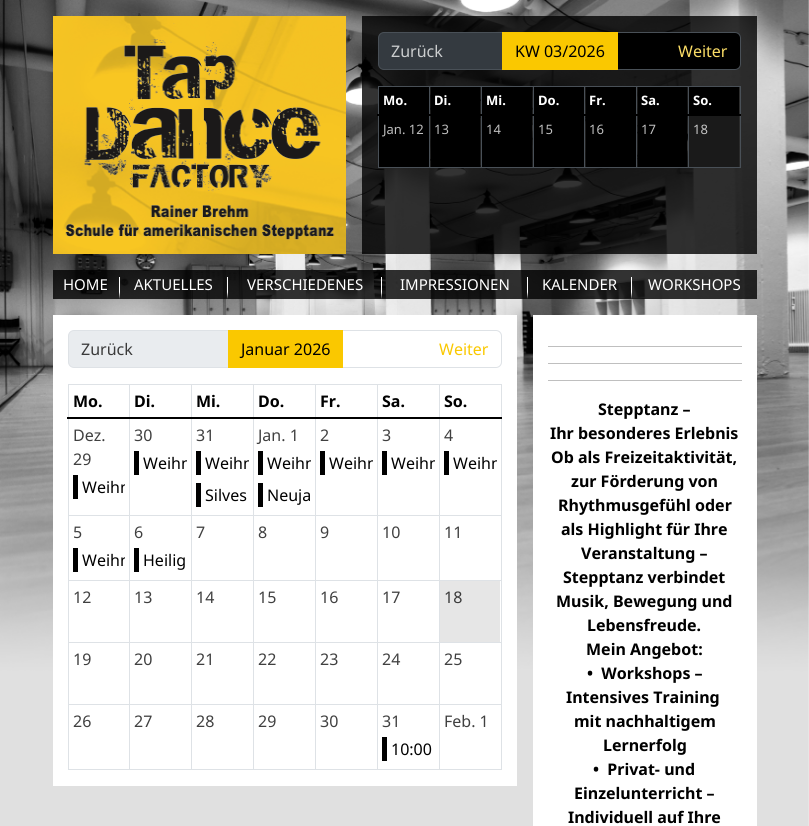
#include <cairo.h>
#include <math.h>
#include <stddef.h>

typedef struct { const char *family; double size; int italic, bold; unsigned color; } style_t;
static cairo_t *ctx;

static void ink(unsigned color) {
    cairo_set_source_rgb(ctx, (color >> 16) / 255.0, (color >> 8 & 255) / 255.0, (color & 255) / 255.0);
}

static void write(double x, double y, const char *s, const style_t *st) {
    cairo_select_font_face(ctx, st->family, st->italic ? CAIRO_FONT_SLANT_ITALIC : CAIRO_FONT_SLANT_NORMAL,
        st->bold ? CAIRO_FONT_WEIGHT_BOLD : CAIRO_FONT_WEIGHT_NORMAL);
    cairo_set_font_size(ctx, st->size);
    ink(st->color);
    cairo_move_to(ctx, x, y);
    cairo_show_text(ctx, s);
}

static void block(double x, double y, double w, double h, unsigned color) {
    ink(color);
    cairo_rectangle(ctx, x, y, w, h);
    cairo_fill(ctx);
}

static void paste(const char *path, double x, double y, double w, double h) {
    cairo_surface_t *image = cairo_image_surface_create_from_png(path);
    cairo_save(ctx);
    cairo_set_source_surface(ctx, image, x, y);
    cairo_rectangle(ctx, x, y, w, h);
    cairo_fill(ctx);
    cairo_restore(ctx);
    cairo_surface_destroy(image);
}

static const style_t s1 = {"Noto Sans", 16, 0, 0, 0xcccecf};
static const style_t s2 = {"Noto Sans", 16, 0, 0, 0x000000};
static const style_t s3 = {"Noto Sans", 16, 0, 0, 0xfcde66};
static const style_t s4 = {"Noto Sans", 13, 0, 1, 0xffffff};
static const style_t s5 = {"Noto Sans", 13, 0, 0, 0xbfbfbf};
static const style_t s6 = {"Noto Sans", 13, 0, 0, 0xc6c6c6};
static const style_t s7 = {"Noto Sans", 15, 0, 0, 0xffffff};
static const style_t s8 = {"Noto Sans", 16, 0, 0, 0x3a3a3a};
static const style_t s9 = {"Noto Sans", 16, 0, 0, 0xfac800};
static const style_t s10 = {"Noto Sans", 16, 0, 1, 0x000000};
static const style_t s11 = {"Noto Sans", 16, 0, 0, 0x404040};

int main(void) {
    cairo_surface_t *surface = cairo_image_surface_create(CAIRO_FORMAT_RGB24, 809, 826);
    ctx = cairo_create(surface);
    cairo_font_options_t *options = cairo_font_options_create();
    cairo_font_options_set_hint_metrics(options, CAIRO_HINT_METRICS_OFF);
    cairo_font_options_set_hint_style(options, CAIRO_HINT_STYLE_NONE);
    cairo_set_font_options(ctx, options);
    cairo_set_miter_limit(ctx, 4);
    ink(0xffffff);
    cairo_paint(ctx);
    paste("pic1.png", 0, 0, 809, 826);
    paste("pic2.png", 53, 16, 293, 238);
    cairo_set_source_rgba(ctx, 0, 0, 0, 0.8);
    cairo_rectangle(ctx, 362, 16, 395, 238);
    cairo_fill(ctx);
    ink(0x343a40);
    cairo_new_path(ctx);
    cairo_move_to(ctx, 384, 32.5);
    cairo_line_to(ctx, 502.5, 32.5);
    cairo_line_to(ctx, 502.5, 69.5);
    cairo_line_to(ctx, 384, 69.5);
    cairo_curve_to(ctx, 381, 69.5, 378.5, 67, 378.5, 64);
    cairo_line_to(ctx, 378.5, 38);
    cairo_curve_to(ctx, 378.5, 35, 381, 32.5, 384, 32.5);
    cairo_close_path(ctx);
    cairo_fill_preserve(ctx);
    ink(0x495057);
    cairo_set_line_width(ctx, 1);
    cairo_stroke(ctx);
    write(391, 57, "Zurück", &s1);
    ink(0x000000);
    cairo_new_path(ctx);
    cairo_move_to(ctx, 617.5, 32.5);
    cairo_line_to(ctx, 735, 32.5);
    cairo_curve_to(ctx, 738, 32.5, 740.5, 35, 740.5, 38);
    cairo_line_to(ctx, 740.5, 64);
    cairo_curve_to(ctx, 740.5, 67, 738, 69.5, 735, 69.5);
    cairo_line_to(ctx, 617.5, 69.5);
    cairo_close_path(ctx);
    cairo_fill_preserve(ctx);
    ink(0x495057);
    cairo_stroke(ctx);
    block(502, 32, 116, 38, 0xfac800);
    write(515, 57, "KW 03/2026", &s2);
    write(678, 57, "Weiter", &s3);
    block(378, 86, 363, 1, 0x495057);
    block(379, 87, 50, 27, 0x000000);
    write(383, 105, "Mo.", &s4);
    block(431, 87, 49, 27, 0x000000);
    write(434, 105, "Di.", &s4);
    block(482, 87, 50, 27, 0x000000);
    write(486, 105, "Mi.", &s4);
    block(534, 87, 50, 27, 0x000000);
    write(538, 105, "Do.", &s4);
    block(586, 87, 50, 27, 0x000000);
    write(589, 105, "Fr.", &s4);
    block(638, 87, 49, 27, 0x000000);
    write(641, 105, "Sa.", &s4);
    block(689, 87, 50, 27, 0x000000);
    write(693, 105, "So.", &s4);
    block(378, 167, 363, 1, 0x495057);
    block(378, 86, 1, 82, 0x495057);
    block(429, 86, 1, 82, 0x495057);
    block(481, 86, 1, 82, 0x495057);
    block(533, 86, 1, 82, 0x495057);
    block(584, 86, 1, 82, 0x495057);
    block(636, 86, 1, 82, 0x495057);
    block(740, 86, 1, 82, 0x495057);
    block(688, 86, 1, 82, 0x495057);
    block(377, 114, 364, 2, 0x000000);
    block(379, 116, 50, 51, 0x000000);
    write(383, 134, "Jan. 12", &s5);
    block(431, 116, 49, 51, 0x000000);
    write(434, 134, "13", &s5);
    block(482, 116, 50, 51, 0x000000);
    write(486, 134, "14", &s5);
    block(534, 116, 50, 51, 0x000000);
    write(538, 134, "15", &s5);
    block(586, 116, 50, 51, 0x000000);
    write(589, 134, "16", &s5);
    block(638, 116, 49, 51, 0x000000);
    write(641, 134, "17", &s5);
    block(689, 116, 50, 51, 0x1a1a1a);
    write(693, 134, "18", &s6);
    cairo_set_source_rgba(ctx, 0, 0, 0, 0.8);
    cairo_rectangle(ctx, 53, 270, 704, 29);
    cairo_fill(ctx);
    write(63, 290, "HOME", &s7);
    cairo_new_path(ctx);
    cairo_move_to(ctx, 119, 299);
    cairo_line_to(ctx, 119, 277);
    cairo_line_to(ctx, 120, 277);
    cairo_line_to(ctx, 120, 292);
    cairo_close_path(ctx);
    cairo_fill(ctx);
    write(134, 290, "AKTUELLES", &s7);
    cairo_new_path(ctx);
    cairo_move_to(ctx, 227, 299);
    cairo_line_to(ctx, 227, 277);
    cairo_line_to(ctx, 228, 277);
    cairo_line_to(ctx, 228, 292);
    cairo_close_path(ctx);
    cairo_fill(ctx);
    write(247, 290, "VERSCHIEDENES", &s7);
    cairo_new_path(ctx);
    cairo_move_to(ctx, 381, 299);
    cairo_line_to(ctx, 381, 277);
    cairo_line_to(ctx, 382, 277);
    cairo_line_to(ctx, 382, 292);
    cairo_close_path(ctx);
    cairo_fill(ctx);
    write(400, 290, "IMPRESSIONEN", &s7);
    cairo_new_path(ctx);
    cairo_move_to(ctx, 527, 299);
    cairo_line_to(ctx, 527, 277);
    cairo_line_to(ctx, 528, 277);
    cairo_line_to(ctx, 528, 292);
    cairo_close_path(ctx);
    cairo_fill(ctx);
    write(542, 290, "KALENDER", &s7);
    cairo_new_path(ctx);
    cairo_move_to(ctx, 631, 299);
    cairo_line_to(ctx, 631, 277);
    cairo_line_to(ctx, 632, 277);
    cairo_line_to(ctx, 632, 292);
    cairo_close_path(ctx);
    cairo_fill(ctx);
    write(648, 290, "WORKSHOPS", &s7);
    block(53, 315, 464, 471, 0xffffff);
    ink(0xe9ecef);
    cairo_new_path(ctx);
    cairo_move_to(ctx, 74, 330.5);
    cairo_line_to(ctx, 228.5, 330.5);
    cairo_line_to(ctx, 228.5, 367.5);
    cairo_line_to(ctx, 74, 367.5);
    cairo_curve_to(ctx, 71, 367.5, 68.5, 365, 68.5, 362);
    cairo_line_to(ctx, 68.5, 336);
    cairo_curve_to(ctx, 68.5, 333, 71, 330.5, 74, 330.5);
    cairo_close_path(ctx);
    cairo_fill_preserve(ctx);
    ink(0xdee2e6);
    cairo_stroke(ctx);
    write(81, 355, "Zurück", &s8);
    cairo_new_path(ctx);
    cairo_move_to(ctx, 342.5, 330.5);
    cairo_line_to(ctx, 496, 330.5);
    cairo_curve_to(ctx, 499, 330.5, 501.5, 333, 501.5, 336);
    cairo_line_to(ctx, 501.5, 362);
    cairo_curve_to(ctx, 501.5, 365, 499, 367.5, 496, 367.5);
    cairo_line_to(ctx, 342.5, 367.5);
    cairo_close_path(ctx);
    ink(0xdee2e6);
    cairo_stroke(ctx);
    block(228, 330, 115, 38, 0xfac800);
    write(241, 355, "Januar 2026", &s2);
    write(439, 355, "Weiter", &s9);
    block(68, 384, 434, 1, 0xdee2e6);
    write(73, 407, "Mo.", &s10);
    write(134, 407, "Di.", &s10);
    write(196, 407, "Mi.", &s10);
    write(258, 407, "Do.", &s10);
    write(320, 407, "Fr.", &s10);
    write(382, 407, "Sa.", &s10);
    write(444, 407, "So.", &s10);
    block(68, 515, 434, 1, 0xdee2e6);
    block(68, 580, 434, 1, 0xdee2e6);
    block(68, 642, 434, 1, 0xdee2e6);
    block(68, 704, 434, 1, 0xdee2e6);
    block(68, 769, 434, 1, 0xdee2e6);
    block(68, 384, 1, 386, 0xdee2e6);
    block(129, 384, 1, 386, 0xdee2e6);
    block(191, 384, 1, 386, 0xdee2e6);
    block(253, 384, 1, 386, 0xdee2e6);
    block(315, 384, 1, 386, 0xdee2e6);
    block(377, 384, 1, 386, 0xdee2e6);
    block(501, 384, 1, 386, 0xdee2e6);
    block(439, 384, 1, 386, 0xdee2e6);
    block(67, 417, 435, 2, 0x000000);
    write(73, 441, "Dez.", &s11);
    write(73, 465, "29", &s11);
    block(73, 475, 5, 24, 0x000000);
    cairo_save(ctx);
    cairo_rectangle(ctx, 73, 471, 52, 32);
    cairo_clip(ctx);
    write(82, 493, "Weihn", &s2);
    cairo_restore(ctx);
    write(134, 441, "30", &s11);
    block(134, 451, 5, 24, 0x000000);
    cairo_save(ctx);
    cairo_rectangle(ctx, 134, 447, 53, 32);
    cairo_clip(ctx);
    write(143, 469, "Weihn", &s2);
    cairo_restore(ctx);
    write(196, 441, "31", &s11);
    block(196, 451, 5, 24, 0x000000);
    cairo_save(ctx);
    cairo_rectangle(ctx, 196, 447, 53, 32);
    cairo_clip(ctx);
    write(205, 469, "Weihn", &s2);
    cairo_restore(ctx);
    block(196, 483, 5, 24, 0x000000);
    write(205, 501, "Silves", &s2);
    write(258, 441, "Jan. 1", &s11);
    block(258, 451, 5, 24, 0x000000);
    cairo_save(ctx);
    cairo_rectangle(ctx, 258, 447, 53, 32);
    cairo_clip(ctx);
    write(267, 469, "Weihn", &s2);
    cairo_restore(ctx);
    block(258, 483, 5, 24, 0x000000);
    write(267, 501, "Neuja", &s2);
    write(320, 441, "2", &s11);
    block(320, 451, 5, 24, 0x000000);
    cairo_save(ctx);
    cairo_rectangle(ctx, 320, 447, 53, 32);
    cairo_clip(ctx);
    write(329, 469, "Weihn", &s2);
    cairo_restore(ctx);
    write(382, 441, "3", &s11);
    block(382, 451, 5, 24, 0x000000);
    cairo_save(ctx);
    cairo_rectangle(ctx, 382, 447, 53, 32);
    cairo_clip(ctx);
    write(391, 469, "Weihn", &s2);
    cairo_restore(ctx);
    write(444, 441, "4", &s11);
    block(444, 451, 5, 24, 0x000000);
    cairo_save(ctx);
    cairo_rectangle(ctx, 444, 447, 53, 32);
    cairo_clip(ctx);
    write(453, 469, "Weihn", &s2);
    cairo_restore(ctx);
    write(73, 538, "5", &s11);
    block(73, 548, 5, 24, 0x000000);
    cairo_save(ctx);
    cairo_rectangle(ctx, 73, 544, 52, 32);
    cairo_clip(ctx);
    write(82, 566, "Weihn", &s2);
    cairo_restore(ctx);
    write(134, 538, "6", &s11);
    block(134, 548, 5, 24, 0x000000);
    write(143, 566, "Heilig", &s2);
    write(196, 538, "7", &s11);
    write(258, 538, "8", &s11);
    write(320, 538, "9", &s11);
    write(382, 538, "10", &s11);
    write(444, 538, "11", &s11);
    write(73, 603, "12", &s11);
    write(134, 603, "13", &s11);
    write(196, 603, "14", &s11);
    write(258, 603, "15", &s11);
    write(320, 603, "16", &s11);
    write(382, 603, "17", &s11);
    block(440, 581, 60, 61, 0xe6e6e6);
    write(444, 603, "18", &s8);
    write(73, 665, "19", &s11);
    write(134, 665, "20", &s11);
    write(196, 665, "21", &s11);
    write(258, 665, "22", &s11);
    write(320, 665, "23", &s11);
    write(382, 665, "24", &s11);
    write(444, 665, "25", &s11);
    write(73, 727, "26", &s11);
    write(134, 727, "27", &s11);
    write(196, 727, "28", &s11);
    write(258, 727, "29", &s11);
    write(320, 727, "30", &s11);
    write(382, 727, "31", &s11);
    block(382, 737, 5, 24, 0x000000);
    write(391, 755, "10:00", &s2);
    write(444, 727, "Feb. 1", &s11);
    block(533, 315, 224, 511, 0xffffff);
    block(548, 346, 194, 1, 0xbfbfbf);
    block(548, 363, 194, 1, 0xbfbfbf);
    block(548, 380, 194, 1, 0xbfbfbf);
    write(598, 415, "Stepptanz –", &s10);
    write(550, 439, "Ihr besonderes Erlebnis", &s10);
    write(551, 463, "Ob als Freizeitaktivität,", &s10);
    write(571, 487, "zur Förderung von", &s10);
    write(558, 511, "Rhythmusgefühl oder", &s10);
    write(561, 535, "als Highlight für Ihre", &s10);
    write(581, 559, "Veranstaltung –", &s10);
    write(563, 583, "Stepptanz verbindet", &s10);
    write(556, 607, "Musik, Bewegung und", &s10);
    write(587, 631, "Lebensfreude.", &s10);
    write(586, 655, "Mein Angebot:", &s10);
    write(587, 679, "•  Workshops –", &s10);
    write(566, 703, "Intensives Training", &s10);
    write(574, 727, "mit nachhaltigem", &s10);
    write(603, 751, "Lernerfolg", &s10);
    write(593, 775, "•  Privat- und", &s10);
    write(574, 799, "Einzelunterricht –", &s10);
    write(568, 823, "Individuell auf Ihre", &s10);
    cairo_surface_write_to_png(surface, "screenshot.png");
    cairo_font_options_destroy(options);
    cairo_destroy(ctx);
    cairo_surface_destroy(surface);
    return 0;
}
